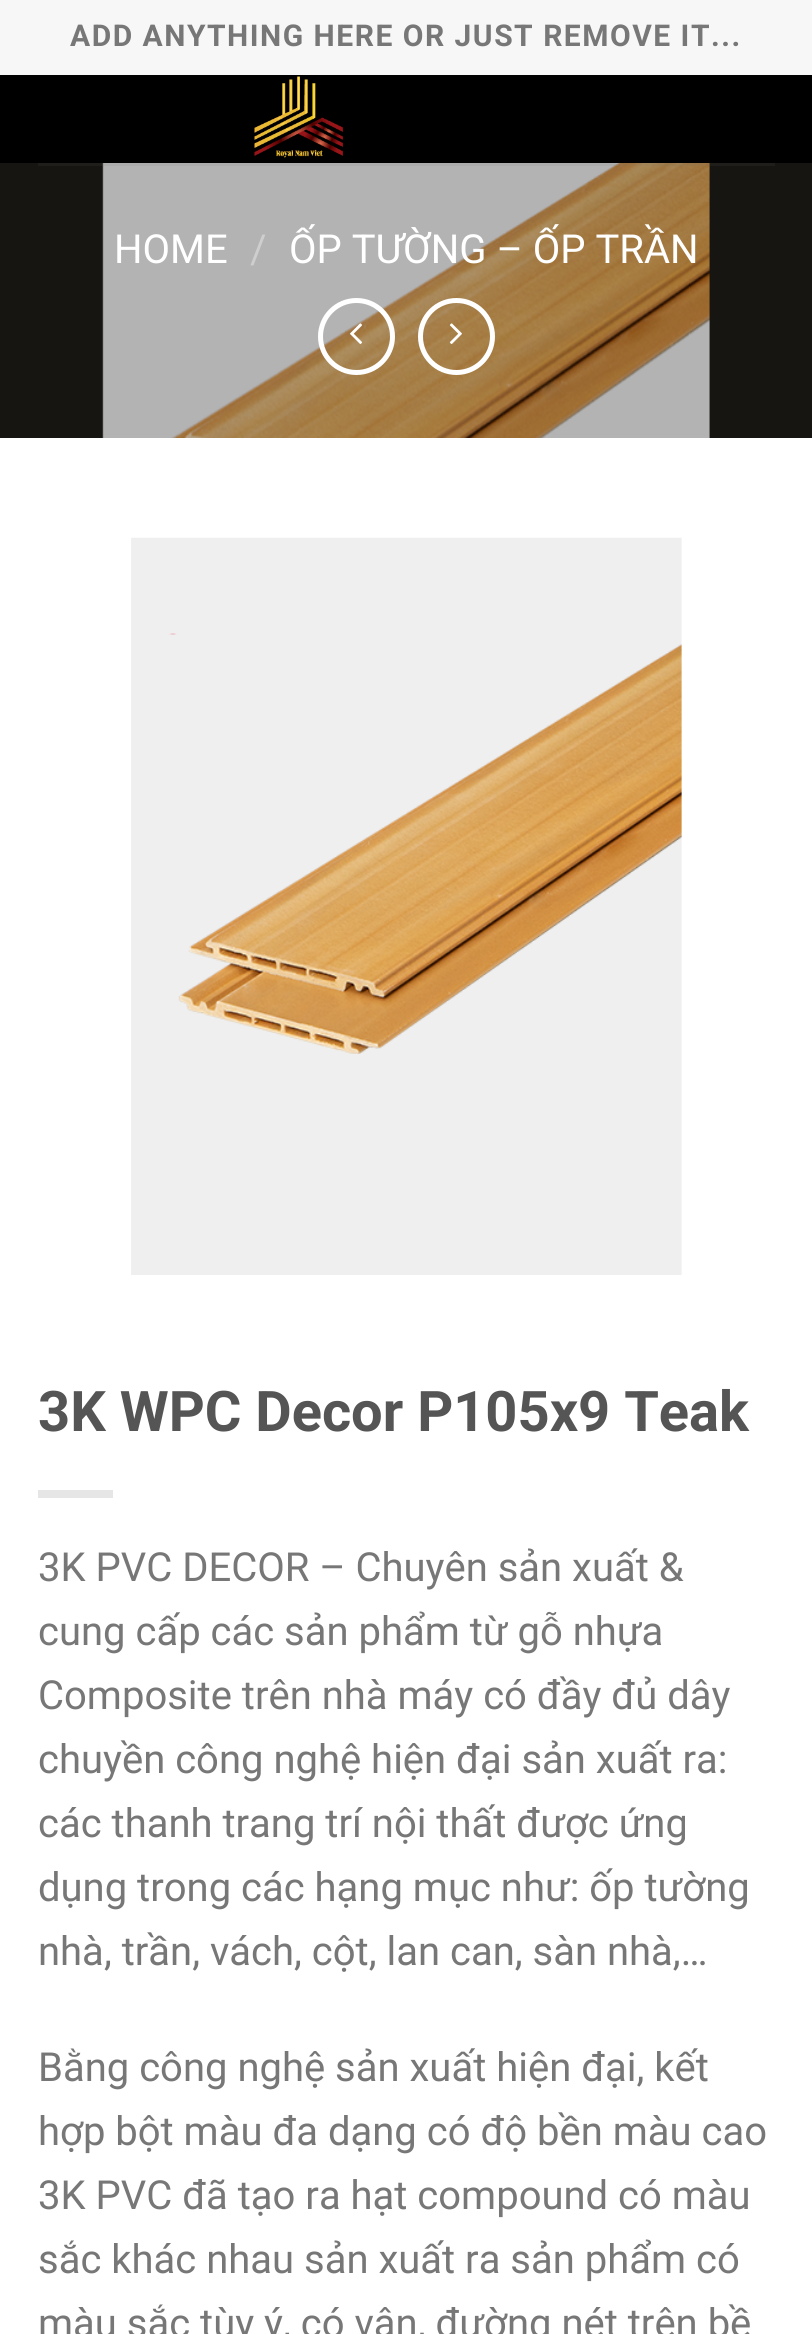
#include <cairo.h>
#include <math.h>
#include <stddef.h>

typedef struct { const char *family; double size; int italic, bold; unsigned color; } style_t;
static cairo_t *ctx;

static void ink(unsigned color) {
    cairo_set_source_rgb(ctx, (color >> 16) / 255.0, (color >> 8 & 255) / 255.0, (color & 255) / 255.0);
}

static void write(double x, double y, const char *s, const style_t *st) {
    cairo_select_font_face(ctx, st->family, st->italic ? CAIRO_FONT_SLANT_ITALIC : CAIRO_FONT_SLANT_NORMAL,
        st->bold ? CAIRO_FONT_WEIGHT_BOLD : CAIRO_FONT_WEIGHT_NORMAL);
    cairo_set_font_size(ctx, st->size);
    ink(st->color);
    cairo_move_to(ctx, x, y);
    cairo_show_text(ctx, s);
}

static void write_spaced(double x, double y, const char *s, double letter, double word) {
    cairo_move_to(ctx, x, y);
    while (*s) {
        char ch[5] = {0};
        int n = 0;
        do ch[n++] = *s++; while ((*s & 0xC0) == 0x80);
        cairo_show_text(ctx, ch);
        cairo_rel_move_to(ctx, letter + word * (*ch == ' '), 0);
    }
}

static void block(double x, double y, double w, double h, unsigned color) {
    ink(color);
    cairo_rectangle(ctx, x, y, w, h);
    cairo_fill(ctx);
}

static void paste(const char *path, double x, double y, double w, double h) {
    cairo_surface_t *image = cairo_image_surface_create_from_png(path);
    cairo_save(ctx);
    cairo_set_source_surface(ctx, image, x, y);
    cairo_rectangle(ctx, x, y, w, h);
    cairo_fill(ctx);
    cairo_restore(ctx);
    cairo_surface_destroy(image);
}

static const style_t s1 = {"Roboto", 40, 0, 0, 0xffffff};
static const style_t s2 = {"Roboto", 40, 0, 0, 0xcecece};
static const style_t s3 = {"Roboto", 56, 0, 1, 0x555555};
static const style_t s4 = {"Roboto", 40, 0, 0, 0x777777};

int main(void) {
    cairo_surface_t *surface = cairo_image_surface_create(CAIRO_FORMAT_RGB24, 812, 2334);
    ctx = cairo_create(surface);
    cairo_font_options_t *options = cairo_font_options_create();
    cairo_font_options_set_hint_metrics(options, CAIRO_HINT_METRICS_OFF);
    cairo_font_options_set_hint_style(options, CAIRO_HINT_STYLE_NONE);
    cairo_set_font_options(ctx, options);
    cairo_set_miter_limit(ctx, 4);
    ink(0xffffff);
    cairo_paint(ctx);
    block(0, 0, 812, 75, 0xf7f7f7);
    cairo_select_font_face(ctx, "Roboto", CAIRO_FONT_SLANT_NORMAL, CAIRO_FONT_WEIGHT_BOLD);
    cairo_set_font_size(ctx, 30);
    ink(0x777777);
    write_spaced(70, 46, "ADD ANYTHING HERE OR JUST REMOVE IT...", 1.5, 0);
    block(0, 75, 812, 88, 0x000000);
    paste("pic1.png", 254, 76, 89, 82);
    block(0, 163, 812, 275, 0x161511);
    paste("pic2.png", 102, 163, 608, 275);
    cairo_set_source_rgba(ctx, 0.467, 0.467, 0.467, 0.1);
    cairo_rectangle(ctx, 38, 163, 737, 3);
    cairo_fill(ctx);
    write(114, 263, "HOME", &s1);
    write(250, 263, "/", &s2);
    write(289, 263, "ỐP TƯỜNG – ỐP TRẦN", &s1);
    cairo_new_path(ctx);
    cairo_arc(ctx, 356.5, 336.5, 36, 0, 2 * M_PI);
    cairo_set_line_width(ctx, 5);
    cairo_stroke(ctx);
    paste("pic3.png", 350, 323, 13, 21);
    cairo_arc(ctx, 456.5, 336.5, 36, 0, 2 * M_PI);
    cairo_stroke(ctx);
    paste("pic4.png", 449, 323, 13, 21);
    paste("pic5.png", 131, 537, 551, 738);
    write(38, 1431, "3K WPC Decor P105x9 Teak", &s3);
    block(38, 1490, 75, 8, 0xe6e6e6);
    write(38, 1581, "3K PVC DECOR – Chuyên sản xuất &", &s4);
    write(38, 1645, "cung cấp các sản phẩm từ gỗ nhựa", &s4);
    write(38, 1709, "Composite trên nhà máy có đầy đủ dây", &s4);
    write(38, 1773, "chuyền công nghệ hiện đại sản xuất ra:", &s4);
    write(38, 1837, "các thanh trang trí nội thất được ứng", &s4);
    write(38, 1901, "dụng trong các hạng mục như: ốp tường", &s4);
    write(38, 1965, "nhà, trần, vách, cột, lan can, sàn nhà,…", &s4);
    write(38, 2081, "Bằng công nghệ sản xuất hiện đại, kết", &s4);
    write(38, 2145, "hợp bột màu đa dạng có độ bền màu cao", &s4);
    write(38, 2209, "3K PVC đã tạo ra hạt compound có màu", &s4);
    write(38, 2273, "sắc khác nhau sản xuất ra sản phẩm có", &s4);
    write(38, 2337, "màu sắc tùy ý, có vân, đường nét trên bề", &s4);
    cairo_surface_write_to_png(surface, "screenshot.png");
    cairo_font_options_destroy(options);
    cairo_destroy(ctx);
    cairo_surface_destroy(surface);
    return 0;
}
